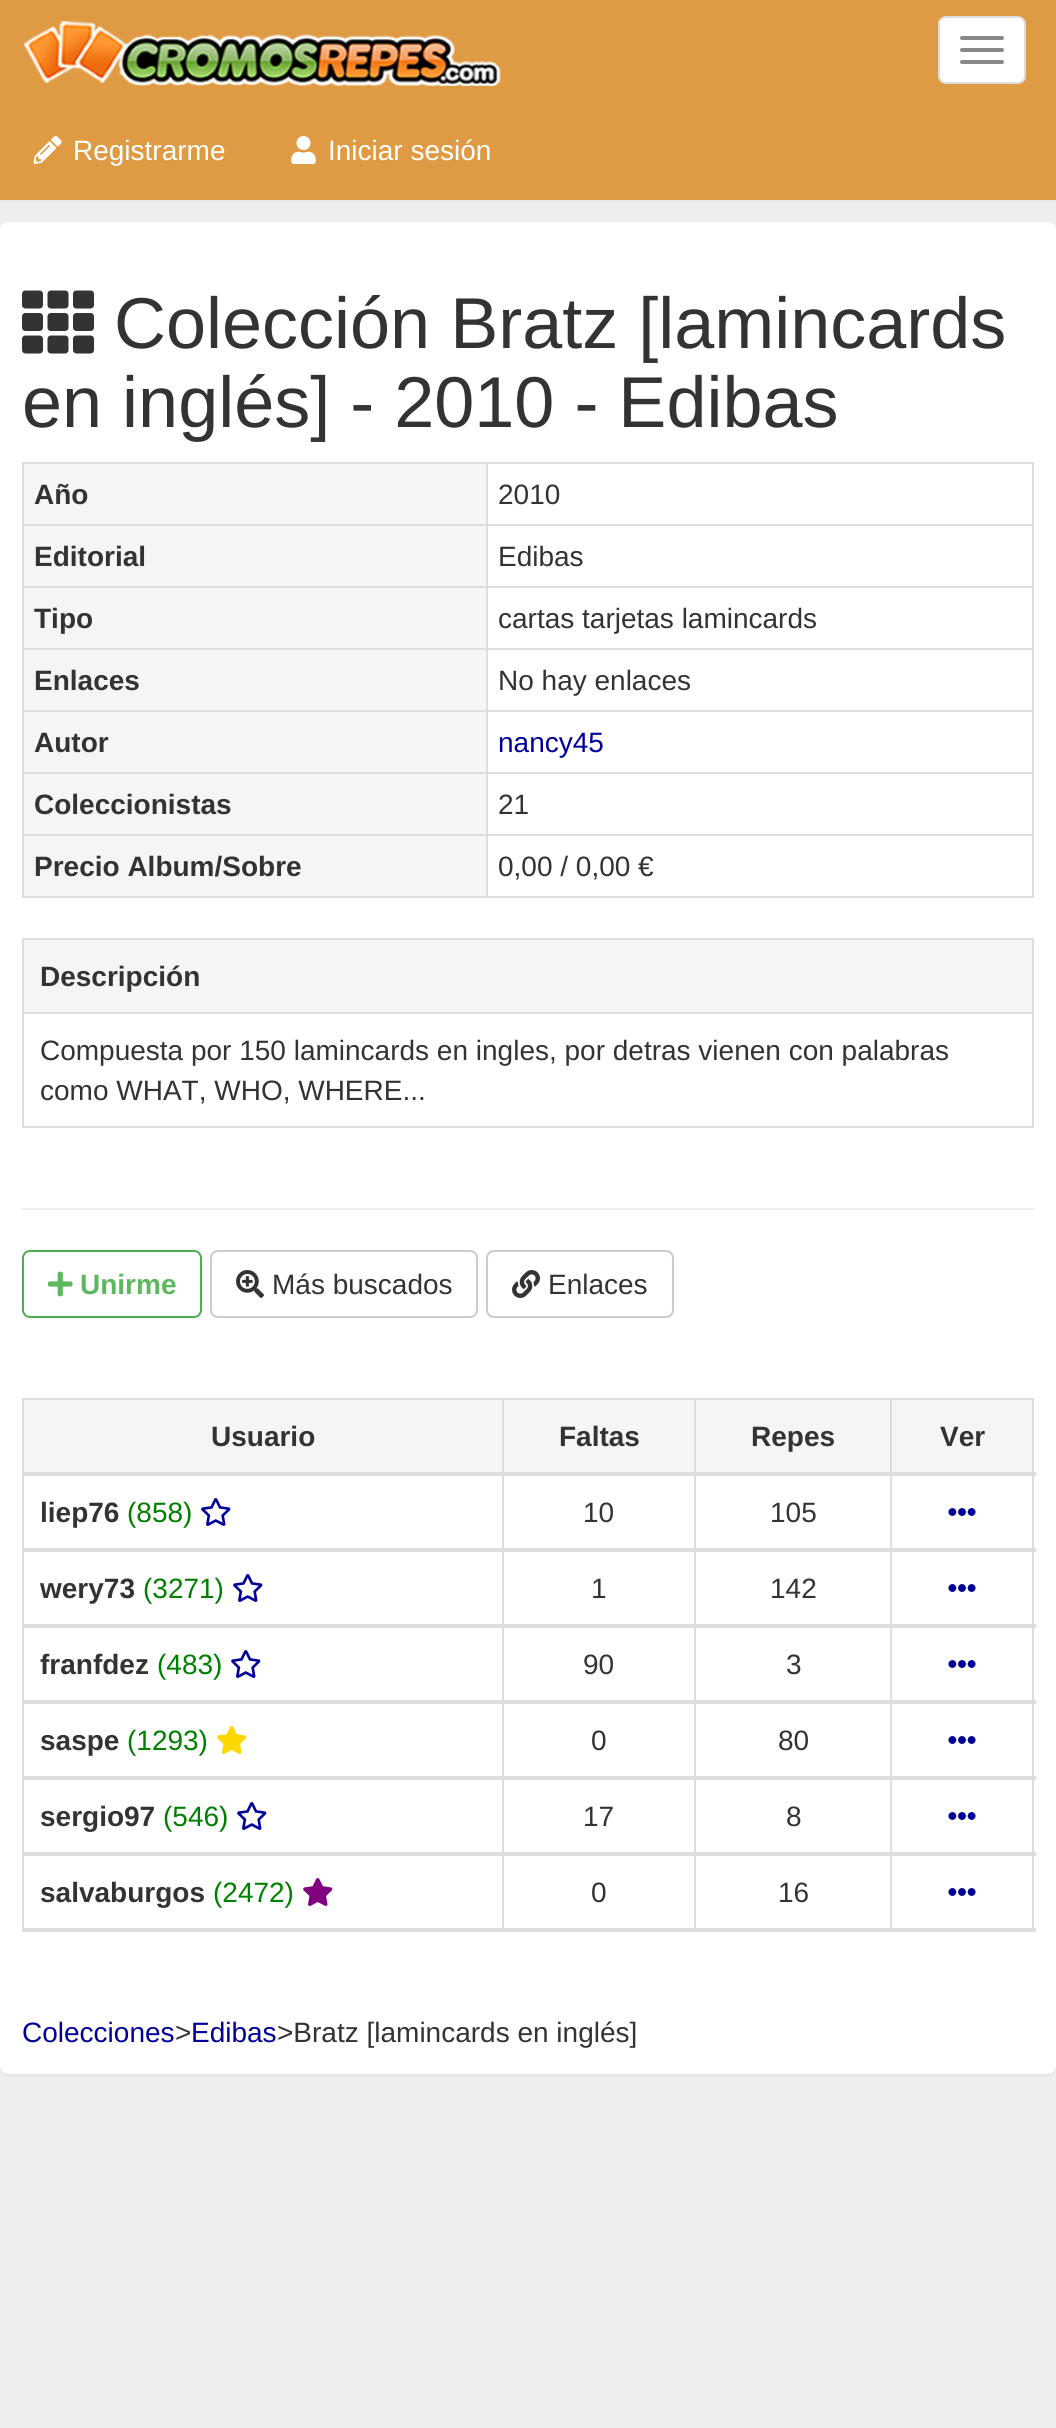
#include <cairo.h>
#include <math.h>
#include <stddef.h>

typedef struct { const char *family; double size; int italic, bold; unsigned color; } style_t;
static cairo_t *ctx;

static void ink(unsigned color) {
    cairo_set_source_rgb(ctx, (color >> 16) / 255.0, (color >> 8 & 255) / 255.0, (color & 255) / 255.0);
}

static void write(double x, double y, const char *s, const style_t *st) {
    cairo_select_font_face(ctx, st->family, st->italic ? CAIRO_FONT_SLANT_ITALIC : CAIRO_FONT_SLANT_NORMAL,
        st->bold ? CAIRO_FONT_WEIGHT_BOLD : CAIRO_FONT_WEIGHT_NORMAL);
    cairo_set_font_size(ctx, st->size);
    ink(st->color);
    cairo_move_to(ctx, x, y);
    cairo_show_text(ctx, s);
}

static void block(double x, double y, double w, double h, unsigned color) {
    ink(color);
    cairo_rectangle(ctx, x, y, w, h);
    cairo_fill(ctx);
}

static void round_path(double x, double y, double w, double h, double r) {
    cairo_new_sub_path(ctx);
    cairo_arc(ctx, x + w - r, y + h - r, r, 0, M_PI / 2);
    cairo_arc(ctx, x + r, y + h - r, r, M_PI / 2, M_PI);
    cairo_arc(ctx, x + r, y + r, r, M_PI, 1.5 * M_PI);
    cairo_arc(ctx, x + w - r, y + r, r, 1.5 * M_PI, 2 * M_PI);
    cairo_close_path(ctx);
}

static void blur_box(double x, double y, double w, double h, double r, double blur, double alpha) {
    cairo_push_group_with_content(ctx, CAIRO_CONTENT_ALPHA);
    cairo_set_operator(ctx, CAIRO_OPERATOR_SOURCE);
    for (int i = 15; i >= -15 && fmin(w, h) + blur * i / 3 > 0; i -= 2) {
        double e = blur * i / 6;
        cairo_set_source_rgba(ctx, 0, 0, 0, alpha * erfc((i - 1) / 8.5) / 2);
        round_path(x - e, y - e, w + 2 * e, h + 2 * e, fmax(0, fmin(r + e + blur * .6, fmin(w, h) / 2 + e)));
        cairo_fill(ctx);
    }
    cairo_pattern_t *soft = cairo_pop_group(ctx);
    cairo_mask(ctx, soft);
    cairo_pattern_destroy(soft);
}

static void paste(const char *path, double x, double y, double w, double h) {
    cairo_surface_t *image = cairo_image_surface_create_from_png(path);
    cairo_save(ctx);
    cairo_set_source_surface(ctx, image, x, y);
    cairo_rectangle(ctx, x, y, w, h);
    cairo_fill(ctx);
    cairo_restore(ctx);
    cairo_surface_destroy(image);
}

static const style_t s1 = {"Liberation Sans", 28, 0, 0, 0xffffff};
static const style_t s2 = {"Liberation Sans", 72, 0, 0, 0x333333};
static const style_t s3 = {"Liberation Sans", 28, 0, 1, 0x333333};
static const style_t s4 = {"Liberation Sans", 28, 0, 0, 0x333333};
static const style_t s5 = {"Liberation Sans", 28, 0, 0, 0x000099};
static const style_t s6 = {"Liberation Sans", 28, 0, 1, 0x5cb85c};
static const style_t s7 = {"Liberation Sans", 28, 0, 0, 0x008000};

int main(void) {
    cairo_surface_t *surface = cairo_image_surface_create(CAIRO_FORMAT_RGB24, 1056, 2428);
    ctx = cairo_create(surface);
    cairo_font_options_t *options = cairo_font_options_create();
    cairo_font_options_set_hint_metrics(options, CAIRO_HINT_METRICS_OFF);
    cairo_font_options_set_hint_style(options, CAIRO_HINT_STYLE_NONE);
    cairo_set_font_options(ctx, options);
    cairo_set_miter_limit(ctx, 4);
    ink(0xeeeeee);
    cairo_paint(ctx);
    block(0, 0, 1056, 200, 0xdf9b44);
    block(0, 200, 1056, 2, 0xe7e7e7);
    paste("pic1.png", 24, 21, 477, 65);
    ink(0xffffff);
    round_path(939, 17, 86, 66, 7);
    cairo_fill_preserve(ctx);
    ink(0xdddddd);
    cairo_stroke(ctx);
    ink(0x888888);
    round_path(960, 36, 44, 4, 2);
    cairo_fill(ctx);
    round_path(960, 48, 44, 4, 2);
    cairo_fill(ctx);
    round_path(960, 60, 44, 4, 2);
    cairo_fill(ctx);
    paste("pic2.png", 33, 136, 29, 28);
    write(73, 160, "Registrarme", &s1);
    paste("pic3.png", 291, 136, 25, 28);
    write(328, 160, "Iniciar sesión", &s1);
    ink(0x000000);
    blur_box(0, 224, 1056, 1852, 8, 1, 0.05);
    ink(0xffffff);
    round_path(0, 222, 1056, 1852, 8);
    cairo_fill(ctx);
    paste("pic4.png", 22, 290, 72, 64);
    write(114, 348, "Colección Bratz [lamincards", &s2);
    write(22, 427, "en inglés] - 2010 - Edibas", &s2);
    block(22, 462, 1012, 2, 0xdddddd);
    block(1032, 462, 2, 436, 0xdddddd);
    block(22, 896, 1012, 2, 0xdddddd);
    block(22, 462, 2, 436, 0xdddddd);
    block(24, 464, 462, 60, 0xf5f5f5);
    write(34, 504, "Año", &s3);
    block(486, 524, 548, 2, 0xdddddd);
    block(486, 586, 548, 2, 0xdddddd);
    block(486, 648, 548, 2, 0xdddddd);
    block(486, 710, 548, 2, 0xdddddd);
    block(486, 772, 548, 2, 0xdddddd);
    block(486, 834, 548, 2, 0xdddddd);
    block(486, 834, 2, 64, 0xdddddd);
    block(22, 834, 466, 2, 0xdddddd);
    block(486, 772, 2, 64, 0xdddddd);
    block(22, 772, 466, 2, 0xdddddd);
    block(486, 710, 2, 64, 0xdddddd);
    block(22, 710, 466, 2, 0xdddddd);
    block(486, 648, 2, 64, 0xdddddd);
    block(22, 648, 466, 2, 0xdddddd);
    block(486, 586, 2, 64, 0xdddddd);
    block(22, 586, 466, 2, 0xdddddd);
    block(486, 524, 2, 64, 0xdddddd);
    block(22, 524, 466, 2, 0xdddddd);
    block(486, 462, 2, 64, 0xdddddd);
    write(498, 504, "2010", &s4);
    block(24, 526, 462, 60, 0xf5f5f5);
    write(34, 566, "Editorial", &s3);
    write(498, 566, "Edibas", &s4);
    block(24, 588, 462, 60, 0xf5f5f5);
    write(34, 628, "Tipo", &s3);
    write(498, 628, "cartas tarjetas lamincards", &s4);
    block(24, 650, 462, 60, 0xf5f5f5);
    write(34, 690, "Enlaces", &s3);
    write(498, 690, "No hay enlaces", &s4);
    block(24, 712, 462, 60, 0xf5f5f5);
    write(34, 752, "Autor", &s3);
    write(498, 752, "nancy45", &s5);
    block(24, 774, 462, 60, 0xf5f5f5);
    write(34, 814, "Coleccionistas", &s3);
    write(498, 814, "21", &s4);
    block(24, 836, 462, 60, 0xf5f5f5);
    write(34, 876, "Precio Album/Sobre", &s3);
    write(498, 876, "0,00 / 0,00 €", &s4);
    block(22, 938, 1012, 2, 0xdddddd);
    block(1032, 938, 2, 190, 0xdddddd);
    block(22, 1126, 1012, 2, 0xdddddd);
    block(22, 938, 2, 190, 0xdddddd);
    block(24, 940, 1008, 72, 0xf5f5f5);
    write(40, 986, "Descripción", &s3);
    block(22, 1012, 1012, 2, 0xdddddd);
    write(40, 1060, "Compuesta por 150 lamincards en ingles, por detras vienen con palabras", &s4);
    write(40, 1100, "como WHAT, WHO, WHERE...", &s4);
    block(22, 1208, 1012, 2, 0xeeeeee);
    round_path(23, 1251, 178, 66, 7);
    ink(0x4cae4c);
    cairo_stroke(ctx);
    paste("pic5.png", 48, 1271, 25, 26);
    write(80, 1294, "Unirme", &s6);
    round_path(211, 1251, 266, 66, 7);
    ink(0xcccccc);
    cairo_stroke(ctx);
    paste("pic6.png", 236, 1270, 28, 28);
    write(272, 1294, "Más buscados", &s4);
    round_path(487, 1251, 186, 66, 7);
    ink(0xcccccc);
    cairo_stroke(ctx);
    paste("pic7.png", 512, 1270, 28, 28);
    write(548, 1294, "Enlaces", &s4);
    block(22, 1398, 1012, 2, 0xdddddd);
    block(1032, 1398, 2, 534, 0xdddddd);
    block(22, 1398, 2, 534, 0xdddddd);
    block(24, 1400, 478, 72, 0xf5f5f5);
    write(211, 1446, "Usuario", &s3);
    block(504, 1400, 190, 72, 0xf5f5f5);
    write(559, 1446, "Faltas", &s3);
    block(696, 1400, 194, 72, 0xf5f5f5);
    write(751, 1446, "Repes", &s3);
    block(892, 1400, 140, 72, 0xf5f5f5);
    block(890, 1398, 2, 534, 0xdddddd);
    block(502, 1398, 2, 534, 0xdddddd);
    block(694, 1398, 2, 534, 0xdddddd);
    block(22, 1472, 1014, 4, 0xdddddd);
    write(940, 1446, "Ver", &s3);
    write(40, 1522, "liep76", &s3);
    write(127, 1522, "(858)", &s7);
    paste("pic8.png", 201, 1498, 30, 28);
    write(583, 1522, "10", &s4);
    write(770, 1522, "105", &s4);
    block(22, 1548, 1014, 4, 0xdddddd);
    paste("pic9.png", 948, 1508, 28, 8);
    write(40, 1598, "wery73", &s3);
    write(143, 1598, "(3271)", &s7);
    paste("pic8.png", 233, 1574, 30, 28);
    write(591, 1598, "1", &s4);
    write(770, 1598, "142", &s4);
    block(22, 1624, 1014, 4, 0xdddddd);
    paste("pic9.png", 948, 1584, 28, 8);
    write(40, 1674, "franfdez", &s3);
    write(157, 1674, "(483)", &s7);
    paste("pic8.png", 231, 1650, 30, 28);
    write(583, 1674, "90", &s4);
    write(786, 1674, "3", &s4);
    block(22, 1700, 1014, 4, 0xdddddd);
    paste("pic9.png", 948, 1660, 28, 8);
    write(40, 1750, "saspe", &s3);
    write(127, 1750, "(1293)", &s7);
    paste("pic10.png", 217, 1726, 30, 28);
    write(591, 1750, "0", &s4);
    write(778, 1750, "80", &s4);
    block(22, 1776, 1014, 4, 0xdddddd);
    paste("pic9.png", 948, 1736, 28, 8);
    write(40, 1826, "sergio97", &s3);
    write(163, 1826, "(546)", &s7);
    paste("pic8.png", 237, 1802, 30, 28);
    write(583, 1826, "17", &s4);
    write(786, 1826, "8", &s4);
    block(22, 1852, 1014, 4, 0xdddddd);
    paste("pic9.png", 948, 1812, 28, 8);
    block(22, 1928, 1014, 4, 0xdddddd);
    paste("pic9.png", 948, 1888, 28, 8);
    write(40, 1902, "salvaburgos", &s3);
    write(213, 1902, "(2472)", &s7);
    paste("pic11.png", 303, 1878, 30, 28);
    write(591, 1902, "0", &s4);
    write(778, 1902, "16", &s4);
    write(22, 2042, "Colecciones", &s5);
    write(175, 2042, ">", &s4);
    write(191, 2042, "Edibas", &s5);
    write(277, 2042, ">Bratz [lamincards en inglés]", &s4);
    cairo_surface_write_to_png(surface, "screenshot.png");
    cairo_font_options_destroy(options);
    cairo_destroy(ctx);
    cairo_surface_destroy(surface);
    return 0;
}
